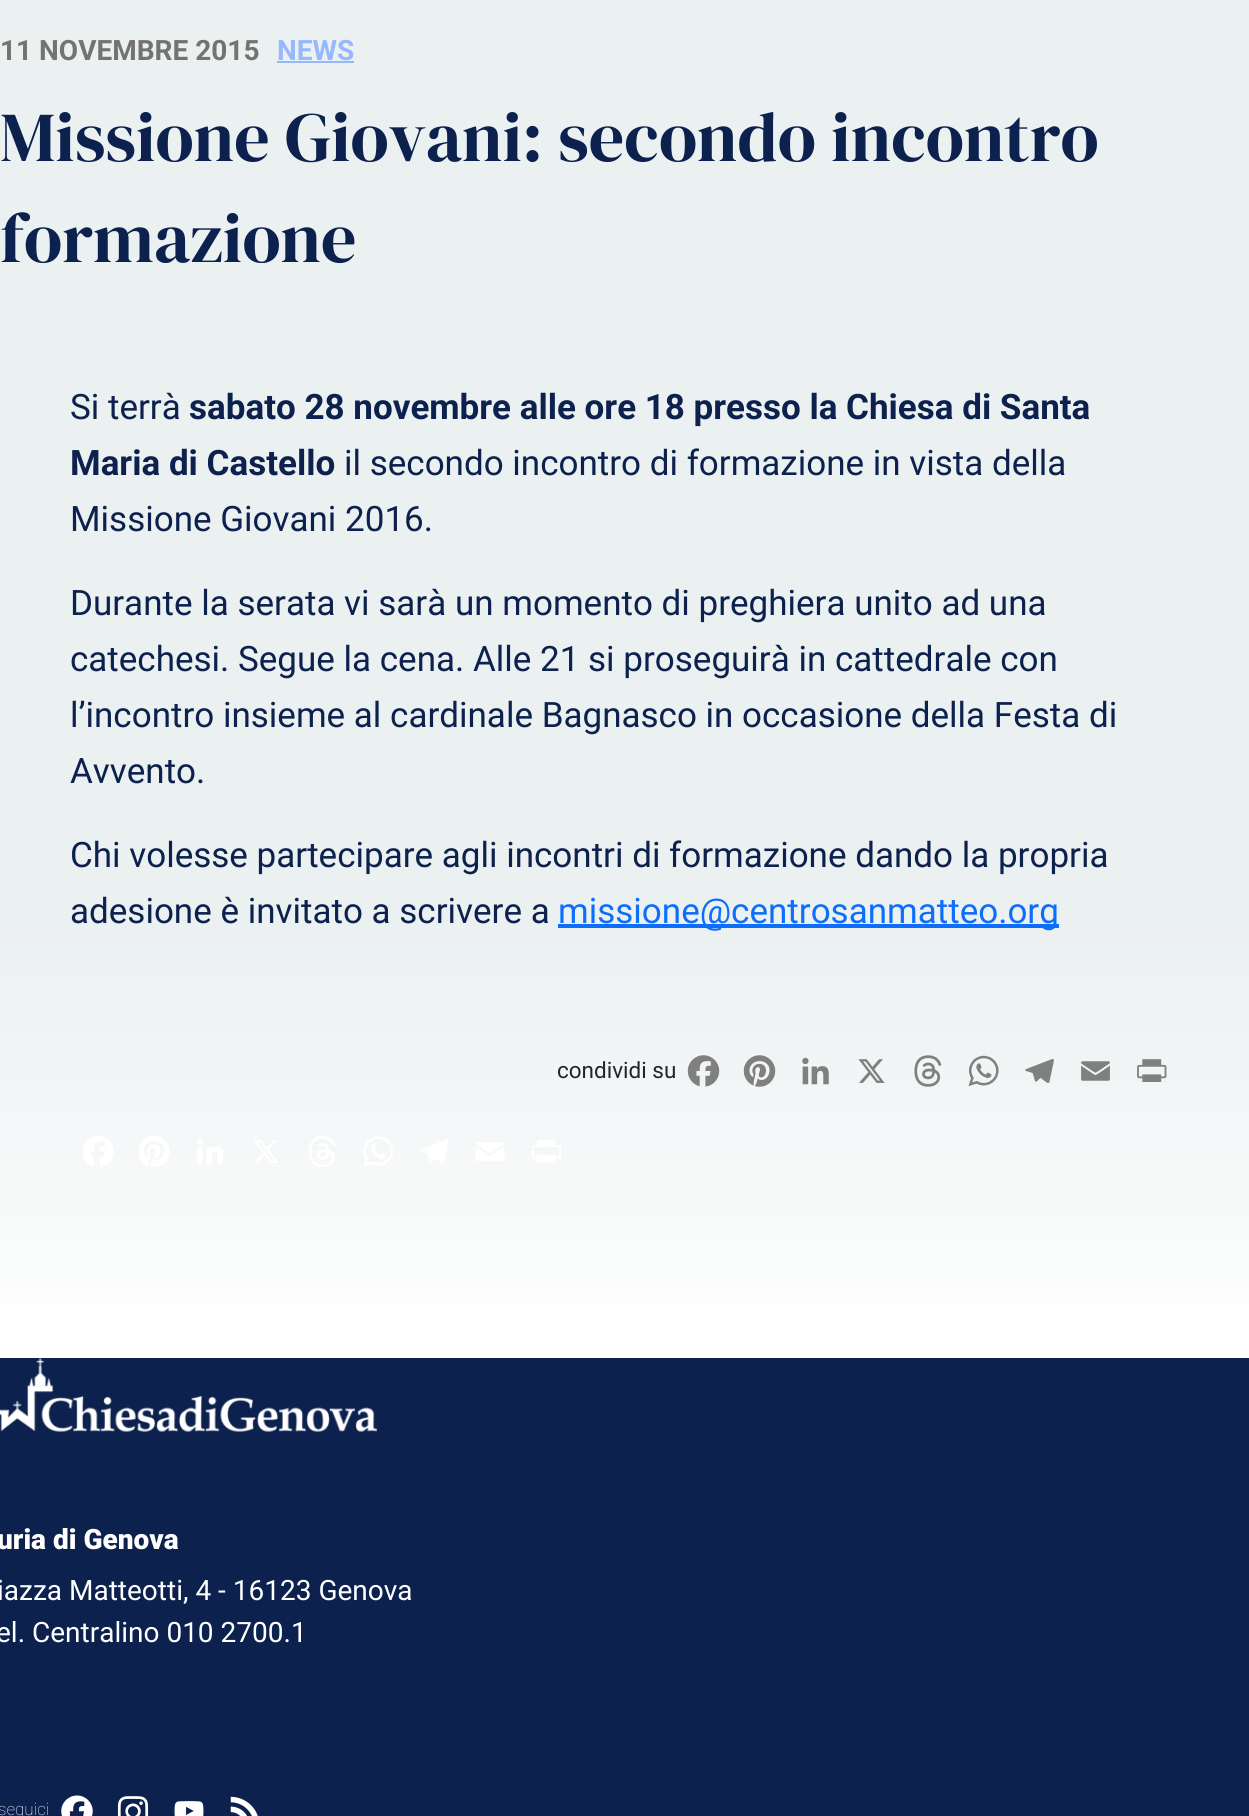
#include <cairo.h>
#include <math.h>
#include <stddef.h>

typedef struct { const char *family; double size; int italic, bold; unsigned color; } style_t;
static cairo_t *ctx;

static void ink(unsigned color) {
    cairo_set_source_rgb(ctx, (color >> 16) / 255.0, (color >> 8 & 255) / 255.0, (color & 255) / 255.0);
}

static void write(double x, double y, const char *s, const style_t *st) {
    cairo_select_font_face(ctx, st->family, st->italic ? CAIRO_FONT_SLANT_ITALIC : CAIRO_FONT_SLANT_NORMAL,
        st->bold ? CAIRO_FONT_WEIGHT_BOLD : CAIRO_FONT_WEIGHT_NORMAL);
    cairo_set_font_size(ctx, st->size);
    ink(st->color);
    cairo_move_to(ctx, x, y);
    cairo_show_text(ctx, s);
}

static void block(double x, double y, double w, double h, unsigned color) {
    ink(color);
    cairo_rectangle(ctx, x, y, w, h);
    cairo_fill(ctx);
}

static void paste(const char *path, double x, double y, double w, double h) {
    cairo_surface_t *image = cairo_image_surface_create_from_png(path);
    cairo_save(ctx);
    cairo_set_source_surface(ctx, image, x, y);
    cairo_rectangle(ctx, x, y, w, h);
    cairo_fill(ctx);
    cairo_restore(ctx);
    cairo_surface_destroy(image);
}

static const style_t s1 = {"Roboto", 28, 0, 1, 0x737373};
static const style_t s2 = {"Roboto", 28, 0, 1, 0x97b8ff};
static const style_t s3 = {"DM Serif Display", 70, 0, 0, 0x0c214e};
static const style_t s4 = {"Roboto", 35, 0, 0, 0x0c214e};
static const style_t s5 = {"Roboto", 35, 0, 1, 0x0c214e};
static const style_t s6 = {"Roboto", 35, 0, 0, 0x0d6efd};
static const style_t s7 = {"Roboto", 22.5, 0, 0, 0x212529};
static const style_t s8 = {"Roboto Black", 28, 0, 0, 0xffffff};
static const style_t s9 = {"Roboto", 28, 0, 0, 0xffffff};
static const style_t s10 = {"Roboto Thin", 17, 0, 0, 0xffffff};

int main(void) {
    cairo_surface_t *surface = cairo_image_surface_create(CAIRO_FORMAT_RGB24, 1249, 1816);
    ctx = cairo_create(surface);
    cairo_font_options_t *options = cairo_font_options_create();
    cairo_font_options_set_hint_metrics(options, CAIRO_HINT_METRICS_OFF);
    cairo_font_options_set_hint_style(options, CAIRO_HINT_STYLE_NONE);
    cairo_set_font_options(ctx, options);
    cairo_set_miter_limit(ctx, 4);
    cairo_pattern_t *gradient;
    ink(0xffffff);
    cairo_paint(ctx);
    gradient = cairo_pattern_create_linear(625, -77, 625, 1358);
    cairo_pattern_add_color_stop_rgba(gradient, 0, 0.922, 0.941, 0.945, 1);
    cairo_pattern_add_color_stop_rgba(gradient, 0.7, 0.922, 0.941, 0.945, 1);
    cairo_pattern_add_color_stop_rgba(gradient, 1, 1, 1, 1, 1);
    cairo_set_source(ctx, gradient);
    cairo_pattern_destroy(gradient);
    cairo_rectangle(ctx, 0, 0, 1249, 1304);
    cairo_fill(ctx);
    write(0, 60, "11 NOVEMBRE 2015", &s1);
    write(277, 60, "NEWS", &s2);
    block(277, 61, 77, 2, 0x97b8ff);
    write(0, 161, "Missione Giovani: secondo incontro", &s3);
    write(0, 262, "formazione", &s3);
    write(70, 419, "Si terrà", &s4);
    write(189, 419, "sabato 28 novembre alle ore 18 presso la Chiesa di Santa", &s5);
    write(70, 475, "Maria di Castello", &s5);
    write(344, 475, "il secondo incontro di formazione in vista della", &s4);
    write(70, 531, "Missione Giovani 2016.", &s4);
    write(70, 615, "Durante la serata vi sarà un momento di preghiera unito ad una", &s4);
    write(70, 671, "catechesi. Segue la cena. Alle 21 si proseguirà in cattedrale con", &s4);
    write(70, 727, "l’incontro insieme al cardinale Bagnasco in occasione della Festa di", &s4);
    write(70, 783, "Avvento.", &s4);
    write(70, 867, "Chi volesse partecipare agli incontri di formazione dando la propria", &s4);
    write(70, 923, "adesione è invitato a scrivere a", &s4);
    block(558, 924, 501, 4, 0x0d6efd);
    write(558, 923, "missione@centrosanmatteo.org", &s6);
    write(557, 1078, "condividi su", &s7);
    paste("pic1.png", 687, 1055, 33, 32);
    paste("pic2.png", 743, 1055, 33, 32);
    paste("pic3.png", 802, 1057, 27, 28);
    paste("pic4.png", 858, 1059, 27, 24);
    paste("pic5.png", 914, 1055, 28, 32);
    paste("pic6.png", 968, 1055, 31, 32);
    paste("pic7.png", 1025, 1058, 29, 25);
    paste("pic8.png", 1081, 1061, 29, 20);
    paste("pic9.png", 1137, 1059, 30, 23);
    paste("pic10.png", 82, 1136, 32, 31);
    paste("pic11.png", 138, 1136, 32, 31);
    paste("pic12.png", 197, 1138, 26, 27);
    paste("pic13.png", 253, 1140, 25, 23);
    paste("pic14.png", 309, 1136, 27, 31);
    paste("pic15.png", 363, 1136, 30, 31);
    paste("pic16.png", 420, 1139, 28, 25);
    paste("pic17.png", 475, 1142, 30, 19);
    paste("pic18.png", 531, 1140, 30, 23);
    block(0, 1358, 1249, 458, 0x0c214e);
    paste("pic19.png", 0, 1358, 378, 74);
    write(-3, 1549, "uria di Genova", &s8);
    write(-3, 1600, "iazza Matteotti, 4 - 16123 Genova", &s9);
    write(-4, 1642, "el. Centralino 010 2700.1", &s9);
    write(-2, 1815, "seguici", &s10);
    paste("pic20.png", 61, 1795, 32, 21);
    paste("pic21.png", 117, 1796, 32, 20);
    paste("pic22.png", 174, 1801, 30, 15);
    paste("pic23.png", 230, 1796, 28, 20);
    cairo_surface_write_to_png(surface, "screenshot.png");
    cairo_font_options_destroy(options);
    cairo_destroy(ctx);
    cairo_surface_destroy(surface);
    return 0;
}
